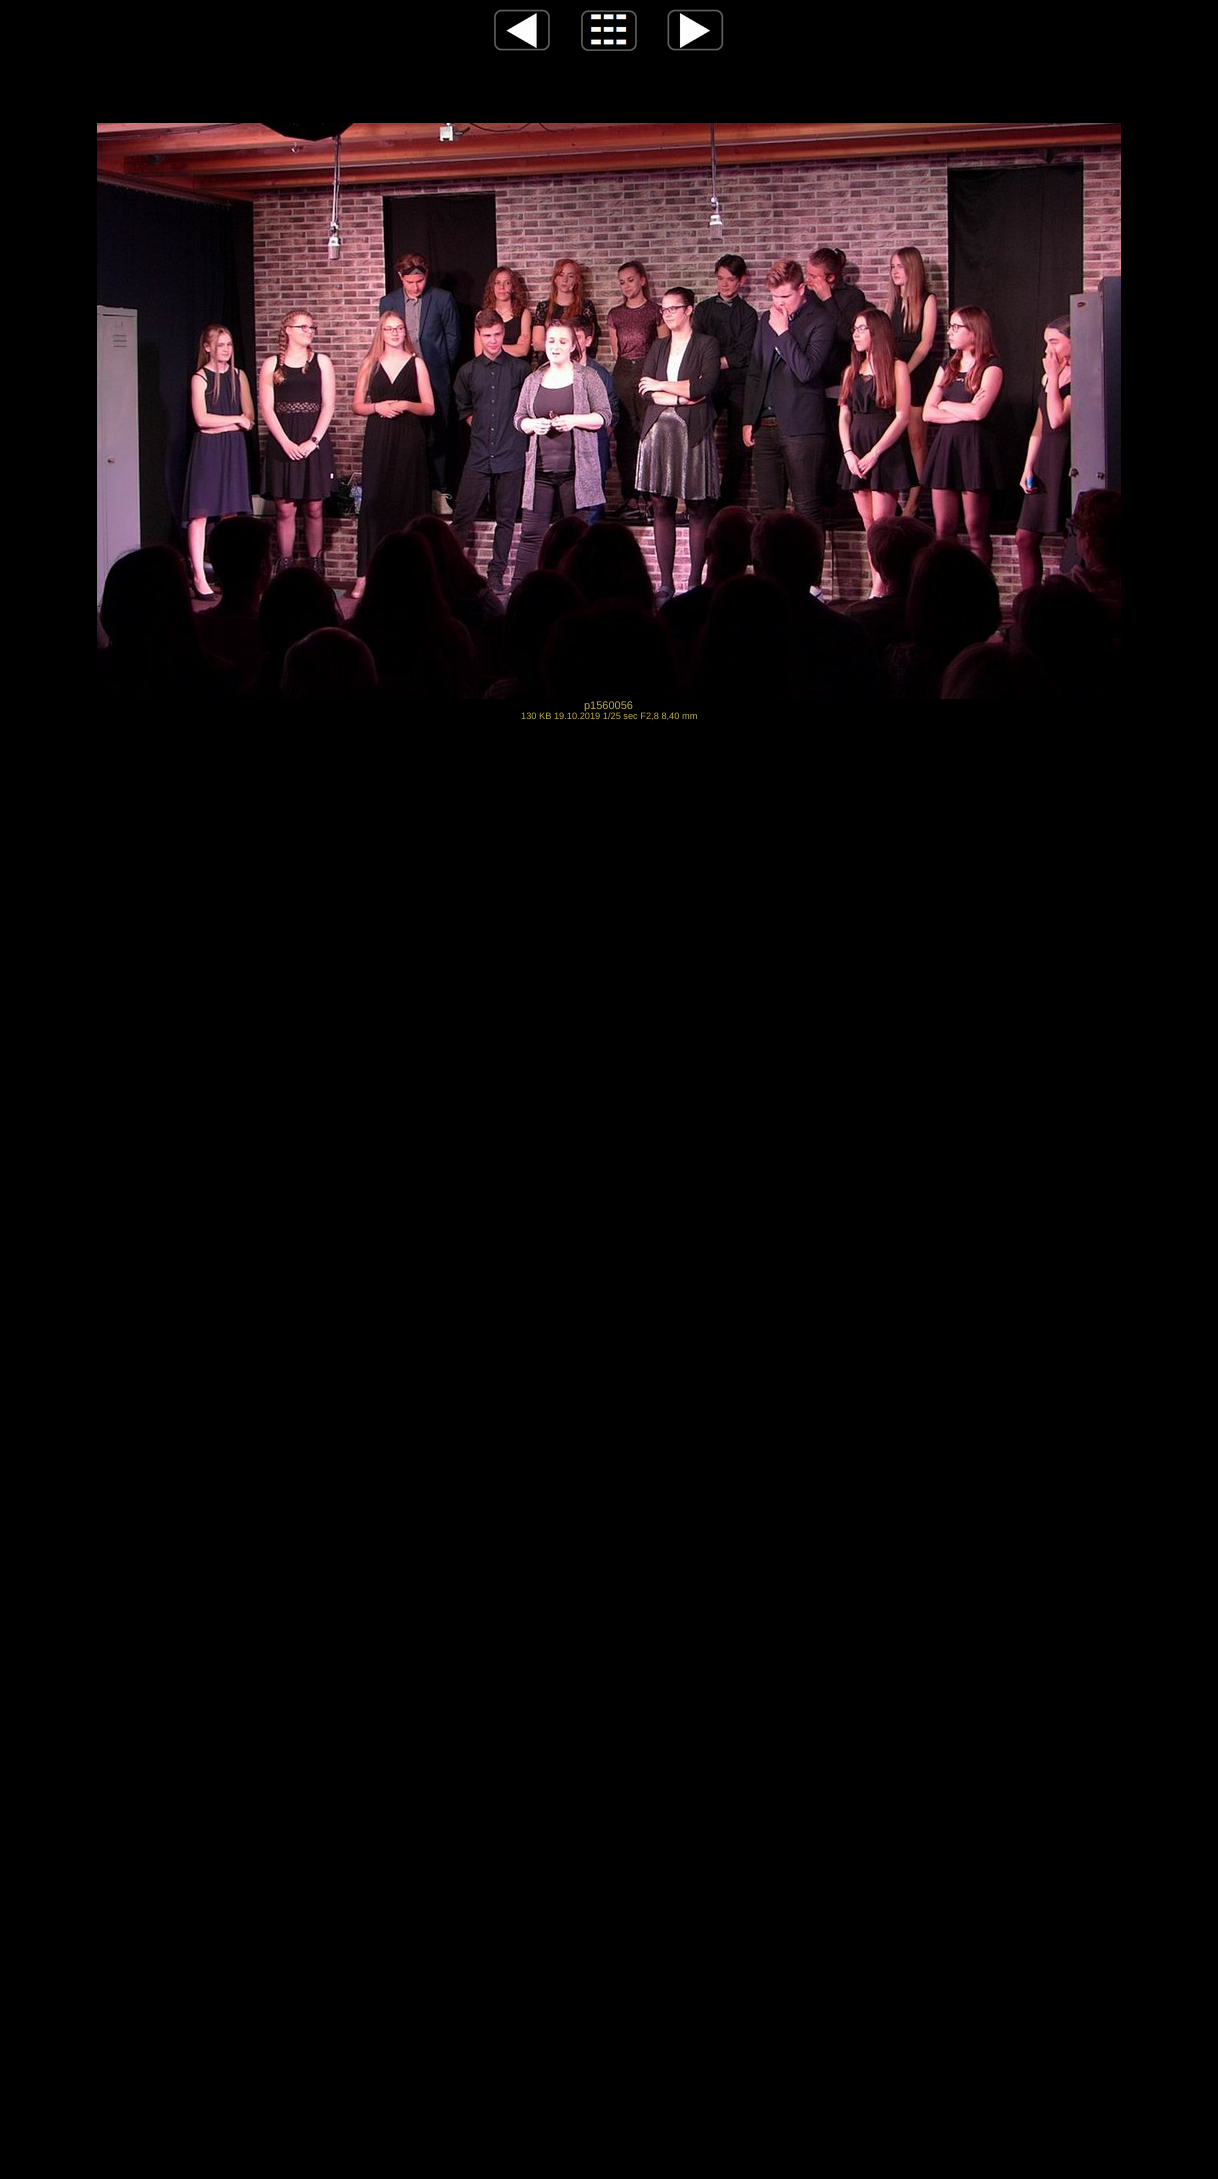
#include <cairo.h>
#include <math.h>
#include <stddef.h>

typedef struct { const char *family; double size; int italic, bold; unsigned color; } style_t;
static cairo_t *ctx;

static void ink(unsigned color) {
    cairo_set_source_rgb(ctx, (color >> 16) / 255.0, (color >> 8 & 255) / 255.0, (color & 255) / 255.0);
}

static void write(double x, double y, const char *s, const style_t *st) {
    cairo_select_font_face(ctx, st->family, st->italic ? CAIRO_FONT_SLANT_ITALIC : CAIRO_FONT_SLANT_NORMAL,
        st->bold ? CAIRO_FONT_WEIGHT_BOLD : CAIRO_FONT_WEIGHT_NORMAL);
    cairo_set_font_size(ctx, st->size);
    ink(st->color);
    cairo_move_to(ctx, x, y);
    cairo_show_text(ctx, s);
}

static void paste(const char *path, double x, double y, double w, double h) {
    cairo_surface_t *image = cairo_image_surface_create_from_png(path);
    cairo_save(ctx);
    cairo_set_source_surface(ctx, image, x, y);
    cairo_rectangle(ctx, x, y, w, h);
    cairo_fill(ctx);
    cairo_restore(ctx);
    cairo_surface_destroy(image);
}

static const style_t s1 = {"Liberation Sans", 11, 0, 0, 0xbbac44};
static const style_t s2 = {"Liberation Sans", 9.25, 0, 0, 0xbbac44};

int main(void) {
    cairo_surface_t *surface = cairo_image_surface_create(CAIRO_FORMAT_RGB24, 1218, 2179);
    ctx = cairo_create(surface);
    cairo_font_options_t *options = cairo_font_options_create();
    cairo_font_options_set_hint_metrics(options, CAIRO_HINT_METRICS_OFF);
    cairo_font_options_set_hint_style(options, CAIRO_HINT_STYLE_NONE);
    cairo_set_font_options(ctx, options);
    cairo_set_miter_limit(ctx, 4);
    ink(0x000000);
    cairo_paint(ctx);
    paste("pic1.png", 494, 9, 56, 42);
    paste("pic2.png", 581, 10, 56, 41);
    paste("pic3.png", 667, 9, 57, 42);
    paste("pic4.png", 97, 123, 1024, 576);
    write(584, 709, "p1560056", &s1);
    write(521, 719, "130 KB 19.10.2019 1/25 sec F2,8 8,40 mm", &s2);
    cairo_surface_write_to_png(surface, "screenshot.png");
    cairo_font_options_destroy(options);
    cairo_destroy(ctx);
    cairo_surface_destroy(surface);
    return 0;
}
